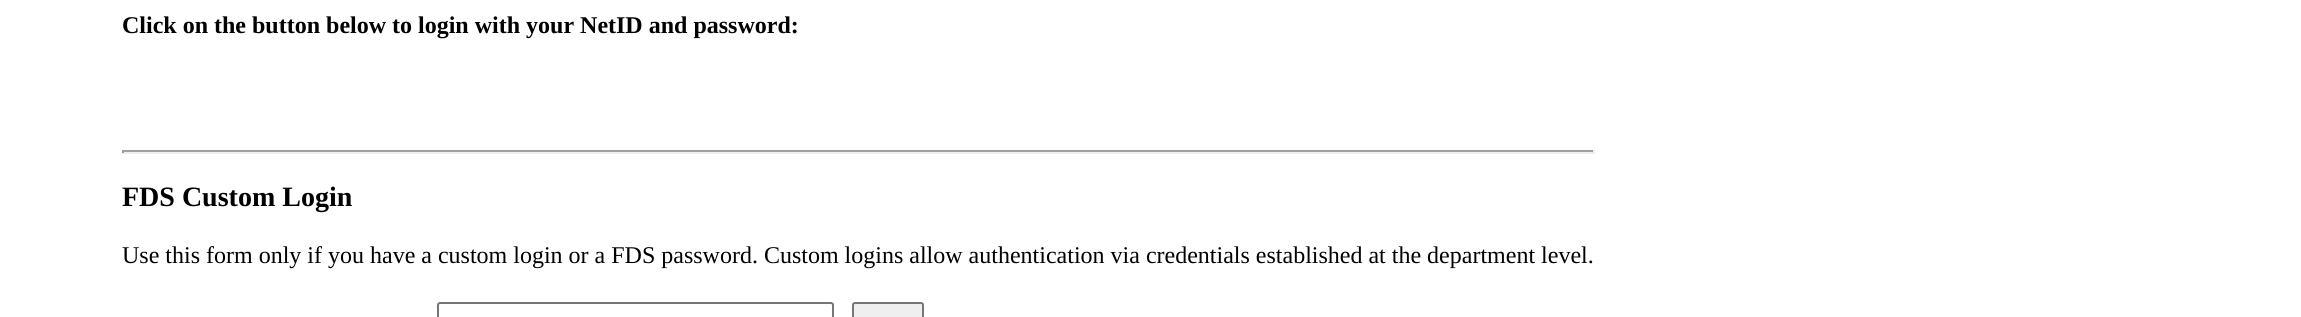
#include <cairo.h>
#include <math.h>
#include <stddef.h>

typedef struct { const char *family; double size; int italic, bold; unsigned color; } style_t;
static cairo_t *ctx;

static void ink(unsigned color) {
    cairo_set_source_rgb(ctx, (color >> 16) / 255.0, (color >> 8 & 255) / 255.0, (color & 255) / 255.0);
}

static void write(double x, double y, const char *s, const style_t *st) {
    cairo_select_font_face(ctx, st->family, st->italic ? CAIRO_FONT_SLANT_ITALIC : CAIRO_FONT_SLANT_NORMAL,
        st->bold ? CAIRO_FONT_WEIGHT_BOLD : CAIRO_FONT_WEIGHT_NORMAL);
    cairo_set_font_size(ctx, st->size);
    ink(st->color);
    cairo_move_to(ctx, x, y);
    cairo_show_text(ctx, s);
}

static void block(double x, double y, double w, double h, unsigned color) {
    ink(color);
    cairo_rectangle(ctx, x, y, w, h);
    cairo_fill(ctx);
}

static void round_path(double x, double y, double w, double h, double r) {
    cairo_new_sub_path(ctx);
    cairo_arc(ctx, x + w - r, y + h - r, r, 0, M_PI / 2);
    cairo_arc(ctx, x + r, y + h - r, r, M_PI / 2, M_PI);
    cairo_arc(ctx, x + r, y + r, r, M_PI, 1.5 * M_PI);
    cairo_arc(ctx, x + w - r, y + r, r, 1.5 * M_PI, 2 * M_PI);
    cairo_close_path(ctx);
}

static const style_t s1 = {"Liberation Serif", 24, 0, 1, 0x000000};
static const style_t s2 = {"Liberation Serif", 28, 0, 1, 0x000000};
static const style_t s3 = {"Liberation Serif", 24, 0, 0, 0x000000};

int main(void) {
    cairo_surface_t *surface = cairo_image_surface_create(CAIRO_FORMAT_RGB24, 2301, 317);
    ctx = cairo_create(surface);
    cairo_font_options_t *options = cairo_font_options_create();
    cairo_font_options_set_hint_metrics(options, CAIRO_HINT_METRICS_OFF);
    cairo_font_options_set_hint_style(options, CAIRO_HINT_STYLE_NONE);
    cairo_set_font_options(ctx, options);
    cairo_set_miter_limit(ctx, 4);
    ink(0xffffff);
    cairo_paint(ctx);
    write(122, 33, "Click on the button below to login with your NetID and password:", &s1);
    block(122, 150, 1473, 2, 0x9f9f9f);
    block(1593, 150, 2, 3, 0xeeeeee);
    block(122, 152, 1473, 2, 0xeeeeee);
    block(122, 150, 2, 3, 0x9f9f9f);
    write(122, 206, "FDS Custom Login", &s2);
    write(122, 263, "Use this form only if you have a custom login or a FDS password. Custom logins allow authentication via credentials established at the department level.", &s3);
    round_path(438, 303, 395, 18, 2);
    ink(0x767676);
    cairo_stroke(ctx);
    ink(0xefefef);
    round_path(853, 303, 70, 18, 2);
    cairo_fill_preserve(ctx);
    ink(0x767676);
    cairo_stroke(ctx);
    cairo_surface_write_to_png(surface, "screenshot.png");
    cairo_font_options_destroy(options);
    cairo_destroy(ctx);
    cairo_surface_destroy(surface);
    return 0;
}
